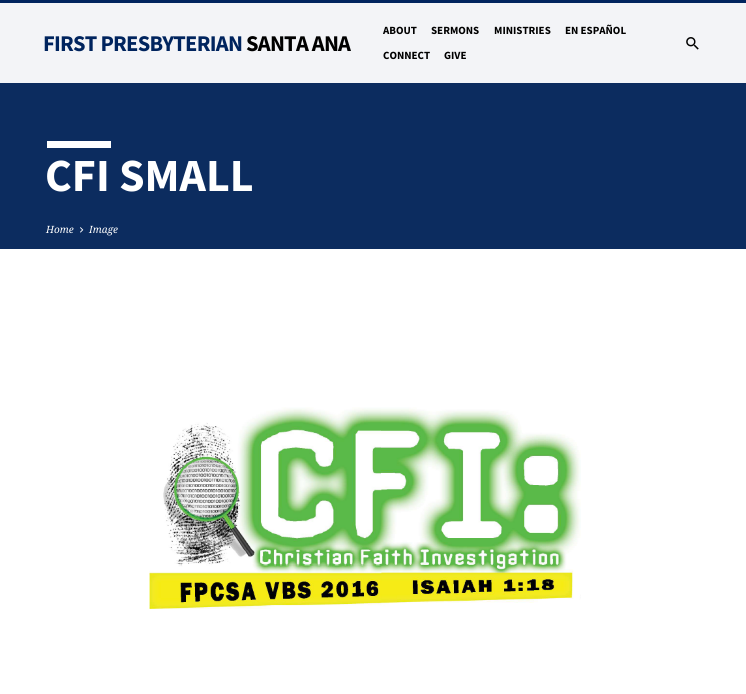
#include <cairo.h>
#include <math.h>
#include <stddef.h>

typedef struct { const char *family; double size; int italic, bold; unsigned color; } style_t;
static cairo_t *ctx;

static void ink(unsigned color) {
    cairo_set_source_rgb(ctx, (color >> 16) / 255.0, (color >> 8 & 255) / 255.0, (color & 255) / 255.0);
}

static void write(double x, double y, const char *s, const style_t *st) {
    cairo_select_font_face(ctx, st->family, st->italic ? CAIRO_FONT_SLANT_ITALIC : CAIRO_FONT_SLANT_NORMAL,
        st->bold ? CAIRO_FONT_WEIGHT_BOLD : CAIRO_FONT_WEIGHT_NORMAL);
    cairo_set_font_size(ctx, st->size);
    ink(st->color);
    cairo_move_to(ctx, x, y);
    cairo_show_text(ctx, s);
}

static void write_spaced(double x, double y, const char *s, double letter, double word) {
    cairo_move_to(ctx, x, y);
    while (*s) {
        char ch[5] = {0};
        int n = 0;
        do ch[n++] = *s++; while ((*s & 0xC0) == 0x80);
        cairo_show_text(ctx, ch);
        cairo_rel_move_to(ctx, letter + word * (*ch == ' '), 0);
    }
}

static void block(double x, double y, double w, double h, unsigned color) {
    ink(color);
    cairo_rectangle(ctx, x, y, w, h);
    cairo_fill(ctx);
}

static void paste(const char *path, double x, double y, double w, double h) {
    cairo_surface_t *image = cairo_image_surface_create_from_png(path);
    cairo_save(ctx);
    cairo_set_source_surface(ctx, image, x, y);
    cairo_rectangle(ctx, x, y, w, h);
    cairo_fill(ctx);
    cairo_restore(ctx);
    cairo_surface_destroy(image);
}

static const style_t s1 = {"Source Sans Pro", 11, 0, 1, 0x000000};
static const style_t s2 = {"Source Sans Pro", 46, 0, 1, 0xffffff};
static const style_t s3 = {"Noto Serif", 10, 1, 0, 0xffffff};

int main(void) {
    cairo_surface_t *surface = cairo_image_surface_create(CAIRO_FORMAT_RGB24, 746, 694);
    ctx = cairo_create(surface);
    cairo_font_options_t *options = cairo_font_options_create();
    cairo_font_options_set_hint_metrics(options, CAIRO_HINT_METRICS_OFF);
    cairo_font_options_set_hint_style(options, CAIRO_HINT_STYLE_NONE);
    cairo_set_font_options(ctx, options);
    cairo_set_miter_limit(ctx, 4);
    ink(0xffffff);
    cairo_paint(ctx);
    block(0, 0, 746, 3, 0x01245e);
    block(0, 3, 746, 80, 0xf3f4f7);
    cairo_select_font_face(ctx, "Source Sans Pro", CAIRO_FONT_SLANT_NORMAL, CAIRO_FONT_WEIGHT_BOLD);
    cairo_set_font_size(ctx, 22.5);
    ink(0x00245e);
    write_spaced(43, 51, "FIRST PRESBYTERIAN", -0.75, 0);
    ink(0x000000);
    write_spaced(246, 51, "SANTA ANA", -0.75, 0);
    write(383, 34, "ABOUT", &s1);
    write(431, 34, "SERMONS", &s1);
    write(494, 34, "MINISTRIES", &s1);
    write(565, 34, "EN ESPAÑOL", &s1);
    write(383, 59, "CONNECT", &s1);
    write(444, 59, "GIVE", &s1);
    paste("pic1.png", 686, 37, 13, 13);
    block(0, 83, 746, 166, 0x0c2c5f);
    block(47, 141, 64, 7, 0xffffff);
    write(45, 191, "CFI SMALL", &s2);
    write(46, 233, "Home", &s3);
    paste("pic2.png", 80, 227, 4, 6);
    write(89, 233, "Image", &s3);
    paste("pic3.png", 149, 407, 432, 202);
    cairo_surface_write_to_png(surface, "screenshot.png");
    cairo_font_options_destroy(options);
    cairo_destroy(ctx);
    cairo_surface_destroy(surface);
    return 0;
}
